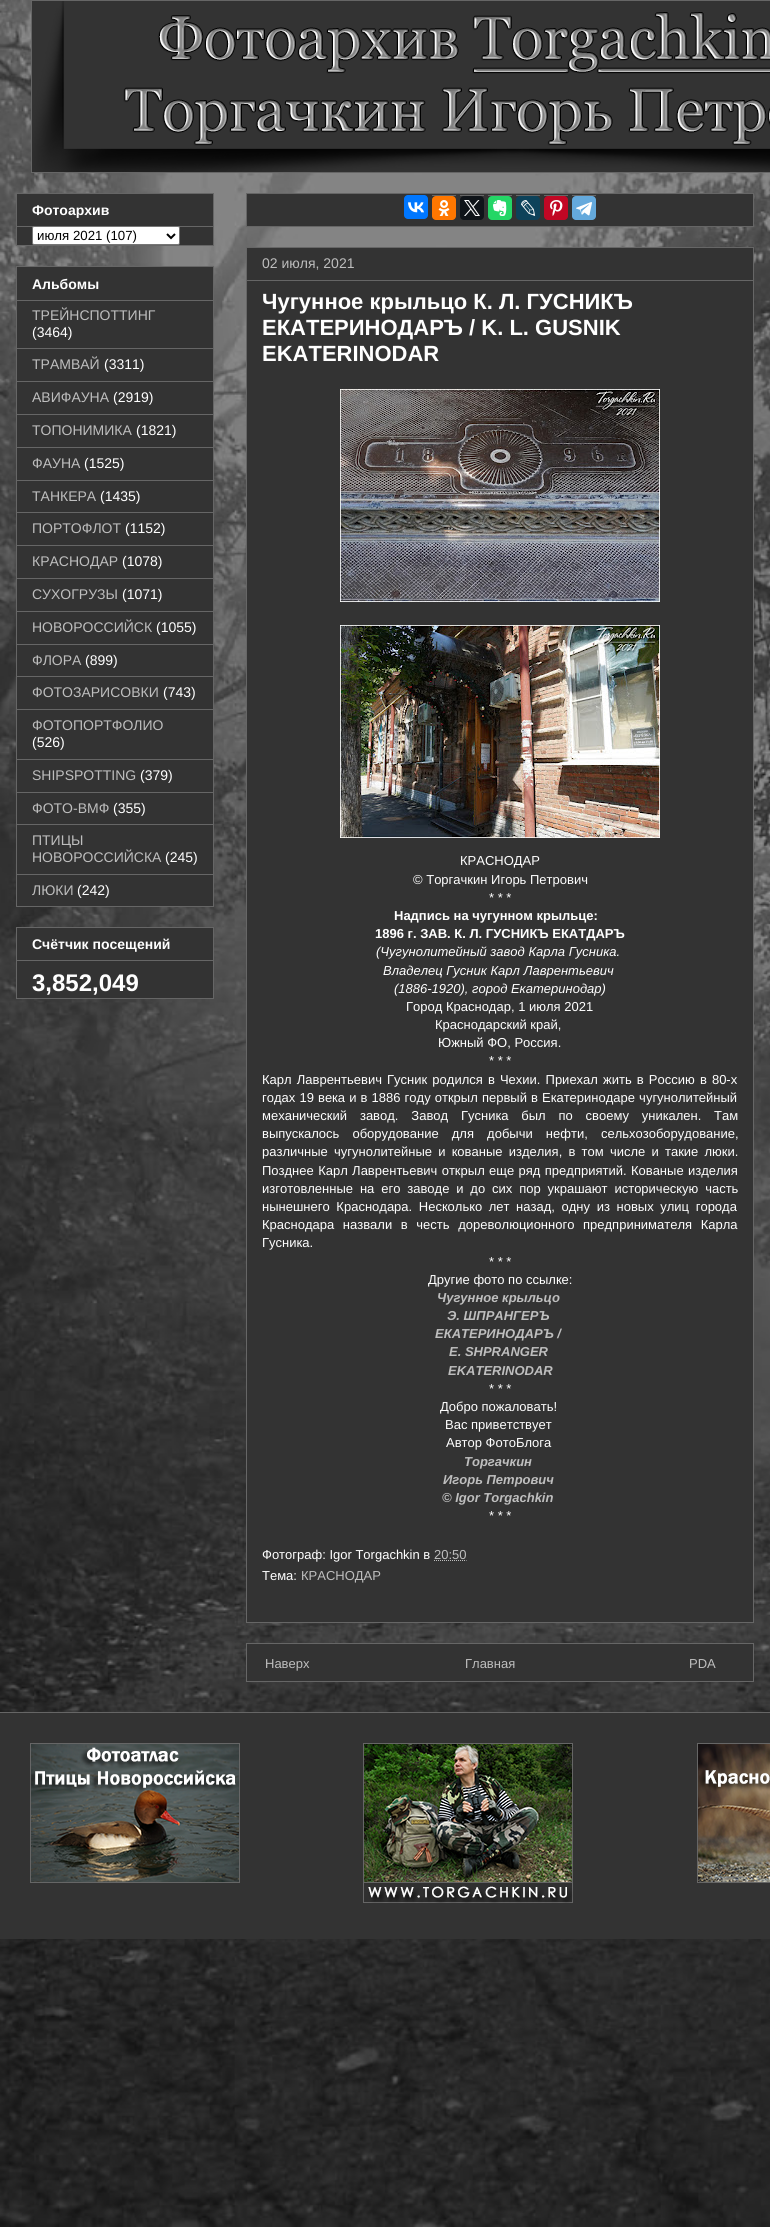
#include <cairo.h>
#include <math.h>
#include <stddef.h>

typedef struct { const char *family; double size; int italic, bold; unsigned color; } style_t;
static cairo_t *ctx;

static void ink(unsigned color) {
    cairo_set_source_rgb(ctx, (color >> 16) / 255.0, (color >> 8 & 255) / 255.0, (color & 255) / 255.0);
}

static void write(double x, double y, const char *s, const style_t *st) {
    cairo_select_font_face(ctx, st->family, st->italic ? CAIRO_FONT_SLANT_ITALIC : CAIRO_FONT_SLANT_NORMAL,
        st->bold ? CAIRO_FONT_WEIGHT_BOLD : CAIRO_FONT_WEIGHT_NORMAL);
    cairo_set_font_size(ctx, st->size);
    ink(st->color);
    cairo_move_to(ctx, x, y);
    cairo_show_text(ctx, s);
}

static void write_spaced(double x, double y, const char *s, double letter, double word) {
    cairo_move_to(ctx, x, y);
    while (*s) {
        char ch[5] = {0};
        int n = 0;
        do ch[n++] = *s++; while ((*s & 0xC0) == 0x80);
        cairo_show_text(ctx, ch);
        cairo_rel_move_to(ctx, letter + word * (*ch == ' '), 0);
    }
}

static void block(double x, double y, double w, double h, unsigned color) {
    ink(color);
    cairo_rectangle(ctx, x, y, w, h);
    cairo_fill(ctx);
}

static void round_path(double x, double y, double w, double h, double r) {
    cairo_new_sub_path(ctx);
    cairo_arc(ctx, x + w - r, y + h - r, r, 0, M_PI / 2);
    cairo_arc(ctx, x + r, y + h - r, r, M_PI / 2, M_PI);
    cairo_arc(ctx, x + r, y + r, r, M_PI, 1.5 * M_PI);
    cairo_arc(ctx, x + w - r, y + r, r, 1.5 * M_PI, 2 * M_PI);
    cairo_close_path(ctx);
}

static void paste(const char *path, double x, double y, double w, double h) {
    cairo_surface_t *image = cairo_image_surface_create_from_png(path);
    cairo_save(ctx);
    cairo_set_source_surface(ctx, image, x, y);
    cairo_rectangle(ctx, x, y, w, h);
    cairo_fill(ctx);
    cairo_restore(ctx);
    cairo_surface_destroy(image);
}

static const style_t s1 = {"Liberation Sans", 14, 0, 1, 0xffffff};
static const style_t s2 = {"Liberation Sans", 13.25, 0, 0, 0x000000};
static const style_t s3 = {"Liberation Sans", 14, 0, 0, 0xbebebe};
static const style_t s4 = {"Liberation Sans", 14, 0, 0, 0xffffff};
static const style_t s5 = {"Liberation Sans", 24, 0, 1, 0xffffff};
static const style_t s6 = {"Liberation Sans", 22, 0, 1, 0xffffff};
static const style_t s7 = {"Liberation Sans", 13, 0, 0, 0xffffff};
static const style_t s8 = {"Liberation Sans", 13, 0, 1, 0xffffff};
static const style_t s9 = {"Liberation Sans", 13, 1, 0, 0xffffff};
static const style_t s10 = {"Liberation Sans", 13, 1, 1, 0xbebebe};
static const style_t s11 = {"Liberation Sans", 13, 0, 0, 0xbebebe};

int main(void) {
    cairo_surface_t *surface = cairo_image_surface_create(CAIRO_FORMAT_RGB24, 770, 2227);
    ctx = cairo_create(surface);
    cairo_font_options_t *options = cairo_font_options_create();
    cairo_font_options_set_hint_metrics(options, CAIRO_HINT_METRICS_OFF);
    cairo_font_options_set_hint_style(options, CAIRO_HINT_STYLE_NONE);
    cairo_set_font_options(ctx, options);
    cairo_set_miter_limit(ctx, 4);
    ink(0xffffff);
    cairo_paint(ctx);
    paste("pic1.png", 0, 0, 770, 2227);
    paste("pic2.png", 31, 0, 739, 173);
    ink(0x333333);
    cairo_rectangle(ctx, 16.5, 193.5, 197, 52);
    cairo_fill_preserve(ctx);
    ink(0x666666);
    cairo_set_line_width(ctx, 1);
    cairo_stroke(ctx);
    write(32, 215, "Фотоархив", &s1);
    block(17, 226, 196, 1, 0x666666);
    ink(0xffffff);
    round_path(32.5, 226.5, 147, 18, 1.5);
    cairo_fill_preserve(ctx);
    ink(0x767676);
    cairo_stroke(ctx);
    cairo_new_path(ctx);
    cairo_move_to(ctx, 167, 234);
    cairo_line_to(ctx, 171, 238);
    cairo_line_to(ctx, 175, 234);
    ink(0x000000);
    cairo_set_line_width(ctx, 2);
    cairo_stroke(ctx);
    write(37, 240, "июля 2021 (107)", &s2);
    ink(0x333333);
    cairo_rectangle(ctx, 16.5, 266.5, 197, 640);
    cairo_fill_preserve(ctx);
    ink(0x666666);
    cairo_set_line_width(ctx, 1);
    cairo_stroke(ctx);
    write(32, 289, "Альбомы", &s1);
    block(17, 300, 196, 1, 0x666666);
    write(32, 320, "ТРЕЙНСПОТТИНГ", &s3);
    write(32, 337, "(3464)", &s4);
    block(17, 348, 196, 1, 0x666666);
    write(32, 369, "ТРАМВАЙ", &s3);
    write(104, 369, "(3311)", &s4);
    block(17, 381, 196, 1, 0x666666);
    write(32, 402, "АВИФАУНА", &s3);
    write(113, 402, "(2919)", &s4);
    block(17, 414, 196, 1, 0x666666);
    write(32, 435, "ТОПОНИМИКА", &s3);
    write(136, 435, "(1821)", &s4);
    block(17, 447, 196, 1, 0x666666);
    write(32, 468, "ФАУНА", &s3);
    write(84, 468, "(1525)", &s4);
    block(17, 480, 196, 1, 0x666666);
    write(32, 501, "ТАНКЕРА", &s3);
    write(100, 501, "(1435)", &s4);
    block(17, 512, 196, 1, 0x666666);
    write(32, 533, "ПОРТОФЛОТ", &s3);
    write(125, 533, "(1152)", &s4);
    block(17, 545, 196, 1, 0x666666);
    write(32, 566, "КРАСНОДАР", &s3);
    write(122, 566, "(1078)", &s4);
    block(17, 578, 196, 1, 0x666666);
    write(32, 599, "СУХОГРУЗЫ", &s3);
    write(122, 599, "(1071)", &s4);
    block(17, 611, 196, 1, 0x666666);
    write(32, 632, "НОВОРОССИЙСК", &s3);
    write(156, 632, "(1055)", &s4);
    block(17, 644, 196, 1, 0x666666);
    write(32, 665, "ФЛОРА", &s3);
    write(85, 665, "(899)", &s4);
    block(17, 676, 196, 1, 0x666666);
    write(32, 697, "ФОТОЗАРИСОВКИ", &s3);
    write(163, 697, "(743)", &s4);
    block(17, 709, 196, 1, 0x666666);
    write(32, 730, "ФОТОПОРТФОЛИО", &s3);
    write(32, 747, "(526)", &s4);
    block(17, 759, 196, 1, 0x666666);
    write(32, 780, "SHIPSPOTTING", &s3);
    write(140, 780, "(379)", &s4);
    block(17, 792, 196, 1, 0x666666);
    write(32, 813, "ФОТО-ВМФ", &s3);
    write(113, 813, "(355)", &s4);
    block(17, 824, 196, 1, 0x666666);
    write(32, 845, "ПТИЦЫ", &s3);
    write(32, 862, "НОВОРОССИЙСКА", &s3);
    write(165, 862, "(245)", &s4);
    block(17, 874, 196, 1, 0x666666);
    write(32, 895, "ЛЮКИ", &s3);
    write(77, 895, "(242)", &s4);
    ink(0x333333);
    cairo_rectangle(ctx, 16.5, 927.5, 197, 71);
    cairo_fill_preserve(ctx);
    ink(0x666666);
    cairo_stroke(ctx);
    write(32, 949, "Счётчик посещений", &s1);
    block(17, 960, 196, 1, 0x666666);
    write(32, 991, "3,852,049", &s5);
    ink(0x333333);
    cairo_rectangle(ctx, 246.5, 193.5, 507, 33);
    cairo_fill_preserve(ctx);
    ink(0x666666);
    cairo_stroke(ctx);
    ink(0x0077ff);
    round_path(404, 195, 24, 24, 4);
    cairo_fill(ctx);
    paste("pic3.png", 408, 202, 16, 11);
    block(432, 195, 24, 1, 0x666666);
    ink(0xff7700);
    round_path(432, 196, 24, 24, 4);
    cairo_fill(ctx);
    paste("pic4.png", 438, 200, 12, 16);
    block(460, 195, 24, 1, 0x666666);
    ink(0x0f1419);
    round_path(460, 196, 24, 24, 4);
    cairo_fill(ctx);
    paste("pic5.png", 464, 200, 16, 16);
    block(488, 195, 24, 1, 0x666666);
    ink(0x24d666);
    round_path(488, 196, 24, 24, 4);
    cairo_fill(ctx);
    paste("pic6.png", 493, 200, 14, 16);
    block(516, 195, 24, 1, 0x666666);
    ink(0x0d425a);
    round_path(516, 196, 24, 24, 4);
    cairo_fill(ctx);
    paste("pic7.png", 521, 200, 15, 16);
    block(544, 195, 24, 1, 0x666666);
    ink(0xc20724);
    round_path(544, 196, 24, 24, 4);
    cairo_fill(ctx);
    paste("pic8.png", 550, 200, 13, 16);
    block(572, 195, 24, 1, 0x666666);
    ink(0x64a9dc);
    round_path(572, 196, 24, 24, 4);
    cairo_fill(ctx);
    paste("pic9.png", 576, 202, 16, 14);
    ink(0x333333);
    cairo_rectangle(ctx, 246.5, 247.5, 507, 1375);
    cairo_fill_preserve(ctx);
    ink(0x666666);
    cairo_stroke(ctx);
    write(262, 268, "02 июля, 2021", &s3);
    block(247, 280, 506, 1, 0x666666);
    write(262, 309, "Чугунное крыльцо К. Л. ГУСНИКЪ", &s6);
    write(262, 335, "ЕКАТЕРИНОДАРЪ / K. L. GUSNIK", &s6);
    write(262, 361, "EKATERINODAR", &s6);
    paste("pic10.png", 340, 389, 320, 213);
    paste("pic11.png", 340, 625, 320, 213);
    write(460, 865, "КРАСНОДАР", &s7);
    write(413, 884, "© Торгачкин Игорь Петрович", &s7);
    write(489, 902, "* * *", &s7);
    write(394, 920, "Надпись на чугунном крыльце:", &s8);
    write(375, 938, "1896 г. ЗАВ. К. Л. ГУСНИКЪ ЕКАТДАРЪ", &s8);
    write(376, 956, "(Чугунолитейный завод Карла Гусника.", &s9);
    write(383, 975, "Владелец Гусник Карл Лаврентьевич", &s9);
    write(394, 993, "(1886-1920), город Екатеринодар)", &s9);
    write(406, 1011, "Город Краснодар, 1 июля 2021", &s7);
    write(435, 1029, "Краснодарский край,", &s7);
    write(438, 1047, "Южный ФО, Россия.", &s7);
    write(489, 1065, "* * *", &s7);
    write_spaced(262, 1084, "Карл Лаврентьевич Гусник родился в Чехии. Приехал жить в Россию в 80-х", 0, 1.5);
    write_spaced(262, 1102, "годах 19 века и в 1886 году открыл первый в Екатеринодаре чугунолитейный", 0, 0.5);
    write_spaced(262, 1120, "механический завод. Завод Гусника был по своему уникален. Там", 0, 9.25);
    write_spaced(262, 1138, "выпускалось оборудование для добычи нефти, сельхозоборудование,", 0, 9.5);
    write_spaced(262, 1156, "различные чугунолитейные и кованые изделия, в том числе и такие люки.", 0, 2.6);
    write_spaced(262, 1175, "Позднее Карл Лаврентьевич открыл еще ряд предприятий. Кованые изделия", 0, 0.75);
    write_spaced(262, 1193, "изготовленные на его заводе и до сих пор украшают историческую часть", 0, 3.25);
    write_spaced(262, 1211, "нынешнего Краснодара. Несколько лет назад, одну из новых улиц города", 0, 3);
    write_spaced(262, 1229, "Краснодара назвали в честь дореволюционного предпринимателя Карла", 0, 5);
    write(262, 1247, "Гусника.", &s7);
    write(489, 1266, "* * *", &s7);
    write(428, 1284, "Другие фото по ссылке:", &s7);
    write(437, 1302, "Чугунное крыльцо", &s10);
    write(447, 1320, "Э. ШПРАНГЕРЪ", &s10);
    write(435, 1338, "ЕКАТЕРИНОДАРЪ /", &s10);
    write(449, 1356, "E. SHPRANGER", &s10);
    write(448, 1375, "EKATERINODAR", &s10);
    write(489, 1393, "* * *", &s7);
    write(440, 1411, "Добро пожаловать!", &s7);
    write(445, 1429, "Вас приветствует", &s7);
    write(446, 1447, "Автор ФотоБлога", &s7);
    write(464, 1466, "Торгачкин", &s10);
    write(443, 1484, "Игорь Петрович", &s10);
    write(442, 1502, "© Igor Torgachkin", &s10);
    write(489, 1520, "* * *", &s7);
    write(262, 1559, "Фотограф: Igor Torgachkin в", &s7);
    write(434, 1559, "20:50", &s11);
    cairo_new_path(ctx);
    cairo_move_to(ctx, 434, 1560.5);
    cairo_line_to(ctx, 466.5, 1560.5);
    cairo_set_dash(ctx, (double[]){1, 1}, 2, 0);
    cairo_stroke(ctx);
    write(262, 1580, "Тема:", &s7);
    write(301, 1580, "КРАСНОДАР", &s11);
    ink(0x333333);
    cairo_rectangle(ctx, 246.5, 1643.5, 507, 38);
    cairo_fill_preserve(ctx);
    ink(0x666666);
    cairo_set_dash(ctx, NULL, 0, 0);
    cairo_stroke(ctx);
    write(265, 1668, "Наверх", &s11);
    write(465, 1668, "Главная", &s11);
    write(689, 1668, "PDA", &s11);
    block(0, 1713, 770, 226, 0x333333);
    block(0, 1712, 770, 1, 0x666666);
    paste("pic12.png", 30, 1743, 210, 140);
    paste("pic13.png", 363, 1743, 210, 160);
    paste("pic14.png", 697, 1743, 73, 140);
    cairo_surface_write_to_png(surface, "screenshot.png");
    cairo_font_options_destroy(options);
    cairo_destroy(ctx);
    cairo_surface_destroy(surface);
    return 0;
}
